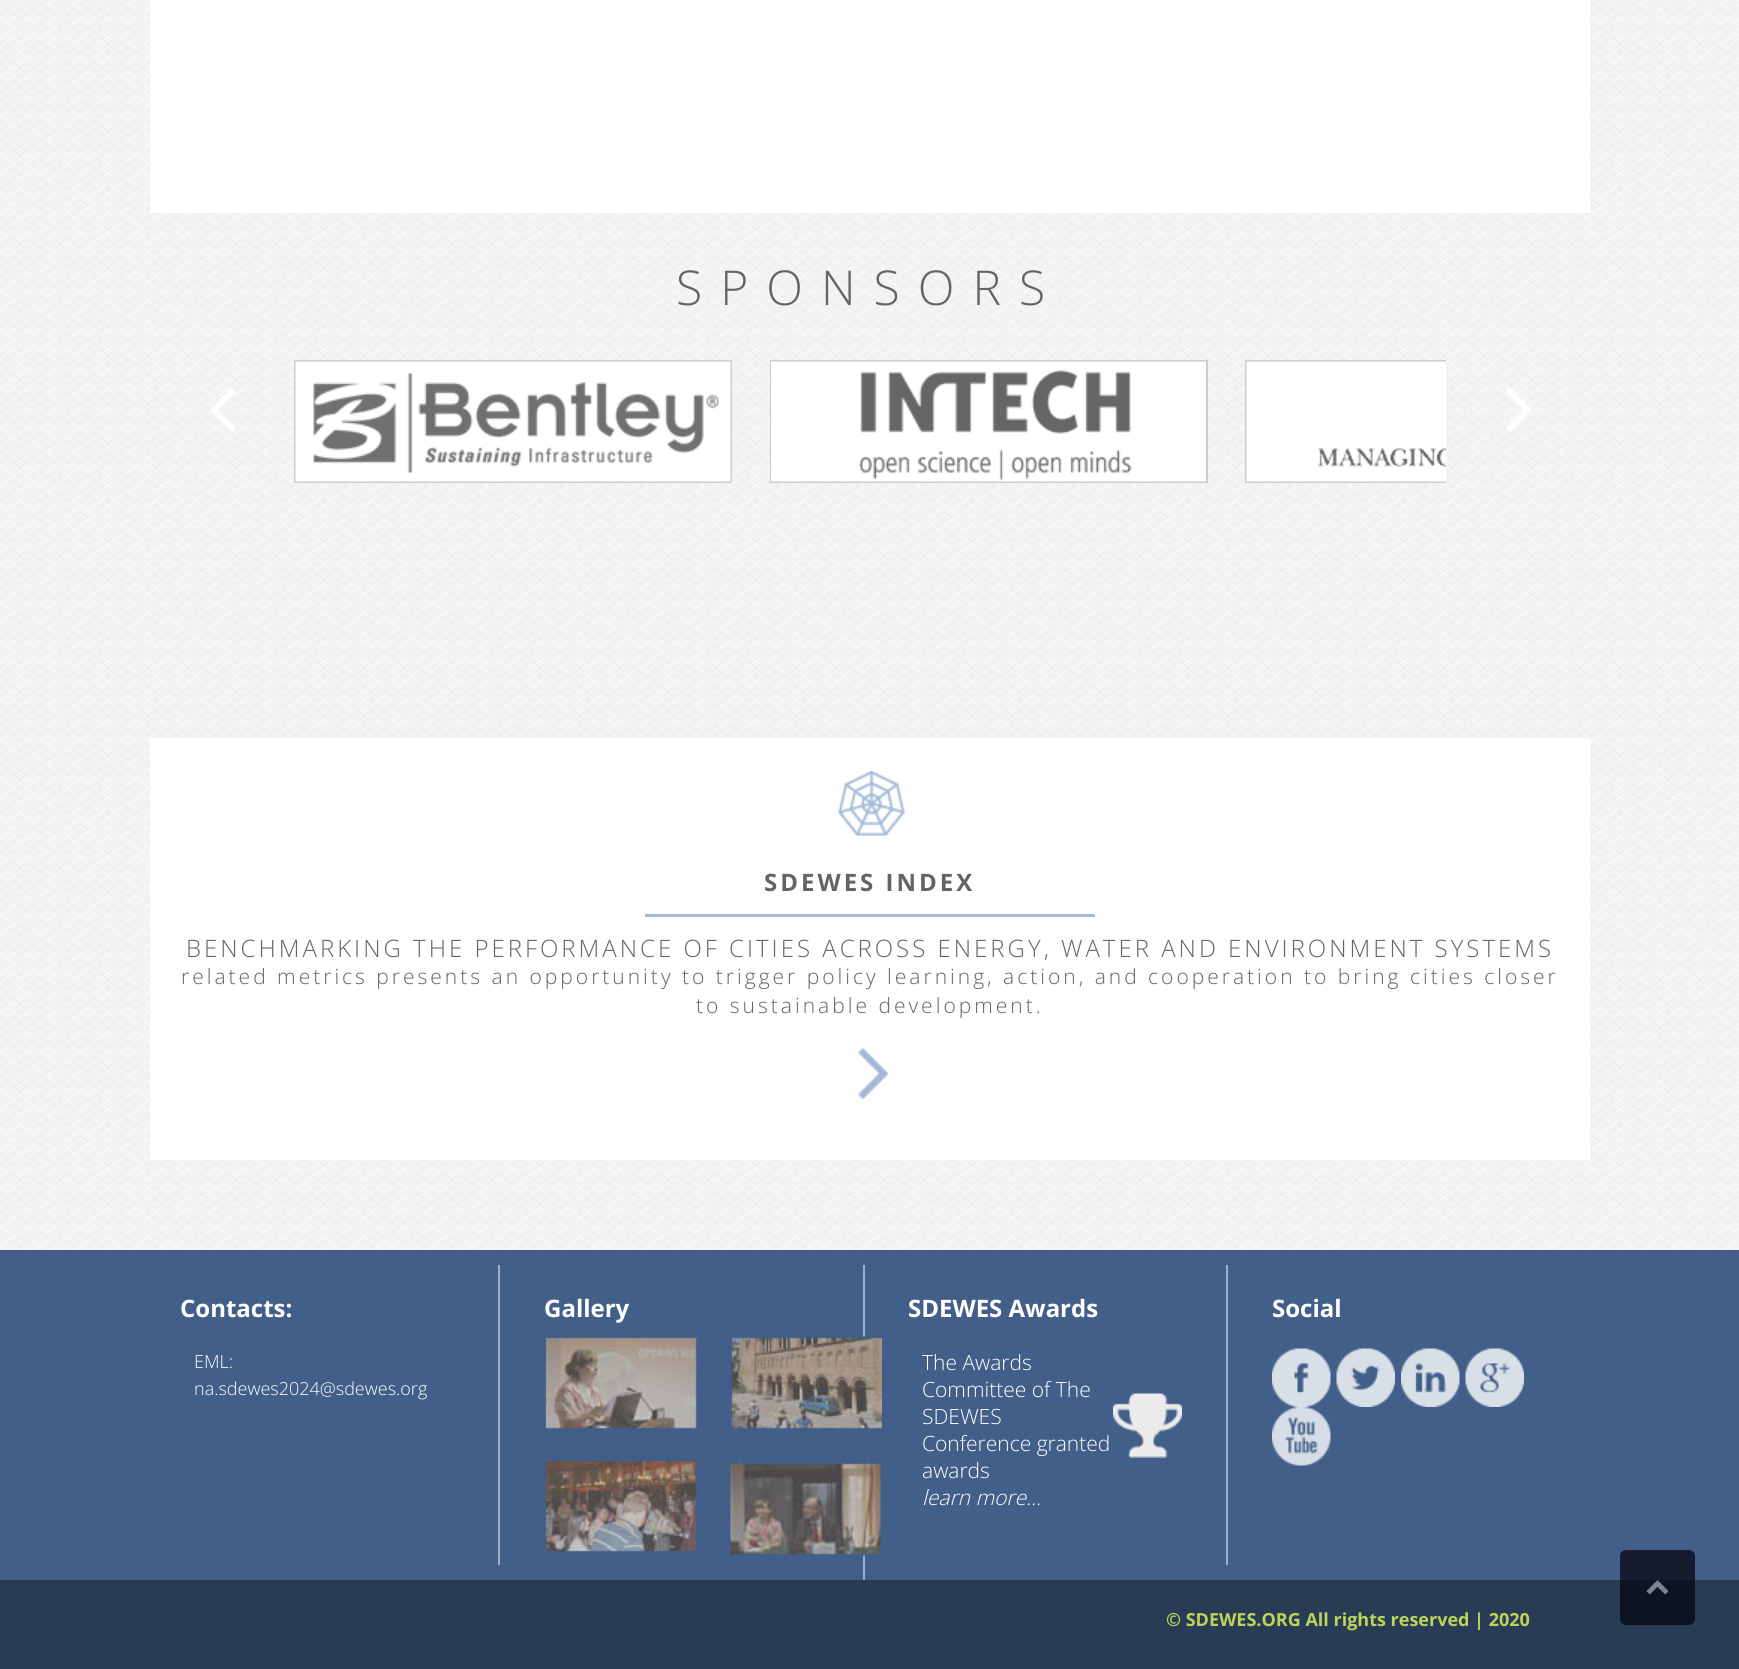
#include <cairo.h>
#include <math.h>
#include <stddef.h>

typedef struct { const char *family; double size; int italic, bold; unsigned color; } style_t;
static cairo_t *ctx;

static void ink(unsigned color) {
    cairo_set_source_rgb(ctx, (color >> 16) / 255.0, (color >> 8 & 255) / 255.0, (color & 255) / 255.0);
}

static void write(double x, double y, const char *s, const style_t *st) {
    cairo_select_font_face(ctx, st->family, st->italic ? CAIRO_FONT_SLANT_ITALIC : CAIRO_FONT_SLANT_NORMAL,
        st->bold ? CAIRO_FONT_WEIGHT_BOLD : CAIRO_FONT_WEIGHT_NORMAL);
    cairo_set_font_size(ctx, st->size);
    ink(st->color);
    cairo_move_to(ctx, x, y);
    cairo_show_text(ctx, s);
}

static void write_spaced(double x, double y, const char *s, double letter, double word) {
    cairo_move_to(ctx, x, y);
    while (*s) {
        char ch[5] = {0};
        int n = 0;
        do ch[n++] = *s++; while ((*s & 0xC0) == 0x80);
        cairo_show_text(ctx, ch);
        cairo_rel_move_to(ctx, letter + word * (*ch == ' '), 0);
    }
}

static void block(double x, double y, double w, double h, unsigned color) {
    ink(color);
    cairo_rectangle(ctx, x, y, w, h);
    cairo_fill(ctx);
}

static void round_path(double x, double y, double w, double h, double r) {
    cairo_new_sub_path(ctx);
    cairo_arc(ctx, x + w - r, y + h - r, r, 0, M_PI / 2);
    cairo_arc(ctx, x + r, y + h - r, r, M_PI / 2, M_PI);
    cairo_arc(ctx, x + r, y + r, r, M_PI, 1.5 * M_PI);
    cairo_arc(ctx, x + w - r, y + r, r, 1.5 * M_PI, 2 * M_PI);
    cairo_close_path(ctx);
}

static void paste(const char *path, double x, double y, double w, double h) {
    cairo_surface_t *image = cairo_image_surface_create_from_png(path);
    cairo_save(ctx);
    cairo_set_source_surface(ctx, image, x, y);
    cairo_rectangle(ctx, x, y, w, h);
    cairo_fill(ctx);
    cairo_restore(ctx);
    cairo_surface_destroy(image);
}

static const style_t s1 = {"Open Sans", 24, 0, 1, 0xffffff};
static const style_t s2 = {"Open Sans Light", 18, 0, 0, 0xffffff};
static const style_t s3 = {"Open Sans Light", 21, 0, 0, 0xffffff};
static const style_t s4 = {"Open Sans Light", 21, 1, 0, 0xffffff};
static const style_t s5 = {"Open Sans", 18, 0, 1, 0xbcd559};

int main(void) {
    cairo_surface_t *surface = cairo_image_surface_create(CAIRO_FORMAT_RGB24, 1739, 1669);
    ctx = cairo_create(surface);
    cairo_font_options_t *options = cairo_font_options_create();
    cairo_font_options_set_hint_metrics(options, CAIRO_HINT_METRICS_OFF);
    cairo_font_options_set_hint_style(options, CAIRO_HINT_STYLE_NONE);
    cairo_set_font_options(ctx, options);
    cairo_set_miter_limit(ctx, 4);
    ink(0xffffff);
    cairo_paint(ctx);
    paste("pic1.png", 0, 0, 1739, 1250);
    block(150, 0, 1440, 213, 0xffffff);
    cairo_select_font_face(ctx, "Open Sans Light", CAIRO_FONT_SLANT_NORMAL, CAIRO_FONT_WEIGHT_NORMAL);
    cairo_set_font_size(ctx, 48);
    ink(0x646464);
    write_spaced(676, 305, "SPONSORS", 18, 0);
    paste("pic2.png", 210, 387, 26, 45);
    cairo_rectangle(ctx, 295, 361, 436, 121);
    ink(0xcccccc);
    cairo_stroke(ctx);
    paste("pic3.png", 295, 361, 436, 121);
    cairo_rectangle(ctx, 771, 361, 436, 121);
    cairo_stroke(ctx);
    paste("pic4.png", 771, 361, 435, 121);
    paste("pic6.png", 1506, 387, 26, 45);
    cairo_save(ctx);
    cairo_rectangle(ctx, 294, 333, 1152, 300);
    cairo_clip(ctx);
    cairo_rectangle(ctx, 1246, 361, 436, 121);
    cairo_stroke(ctx);
    cairo_restore(ctx);
    paste("pic5.png", 1246, 361, 200, 121);
    block(150, 738, 1440, 422, 0xfefefe);
    block(645, 914, 450, 3, 0xa4b9d6);
    paste("pic7.png", 838, 770, 67, 66);
    cairo_select_font_face(ctx, "Open Sans", CAIRO_FONT_SLANT_NORMAL, CAIRO_FONT_WEIGHT_BOLD);
    cairo_set_font_size(ctx, 24);
    ink(0x646464);
    write_spaced(764, 891, "SDEWES INDEX", 3, 0);
    cairo_select_font_face(ctx, "Open Sans Light", CAIRO_FONT_SLANT_NORMAL, CAIRO_FONT_WEIGHT_NORMAL);
    write_spaced(186, 957, "BENCHMARKING THE PERFORMANCE OF CITIES ACROSS ENERGY, WATER AND ENVIRONMENT SYSTEMS", 3, 0);
    cairo_set_font_size(ctx, 21);
    write_spaced(181, 984, "related metrics presents an opportunity to trigger policy learning, action, and cooperation to bring cities closer", 3, 0);
    write_spaced(696, 1013, "to sustainable development.", 3, 0);
    paste("pic8.png", 857, 1048, 32, 52);
    block(0, 1250, 1739, 330, 0x415f89);
    block(498, 1265, 2, 300, 0xa0afc4);
    write(180, 1317, "Contacts:", &s1);
    write(194, 1368, "EML:", &s2);
    write(194, 1395, "na.sdewes2024@sdewes.org", &s2);
    block(0, 1580, 1739, 89, 0x283c56);
    block(863, 1265, 2, 321, 0xa0afc4);
    write(544, 1317, "Gallery", &s1);
    paste("pic9.png", 544, 1336, 338, 220);
    block(1226, 1265, 2, 300, 0xa0afc4);
    write(908, 1317, "SDEWES Awards", &s1);
    write(922, 1370, "The Awards", &s3);
    write(922, 1397, "Committee of The", &s3);
    write(922, 1424, "SDEWES", &s3);
    paste("pic10.png", 1113, 1393, 69, 65);
    write(922, 1451, "Conference granted", &s3);
    write(922, 1478, "awards", &s3);
    write(922, 1505, "learn more...", &s4);
    write(1272, 1317, "Social", &s1);
    paste("pic11.png", 1272, 1348, 59, 59);
    paste("pic12.png", 1336, 1348, 59, 59);
    paste("pic13.png", 1401, 1348, 59, 59);
    paste("pic14.png", 1465, 1348, 59, 59);
    paste("pic15.png", 1272, 1407, 59, 59);
    block(863, 1580, 2, 6, 0x283c56);
    write(1166, 1626, "© SDEWES.ORG All rights reserved | 2020", &s5);
    cairo_set_source_rgba(ctx, 0.024, 0.024, 0.059, 0.75);
    round_path(1620, 1550, 75, 75, 6);
    cairo_fill(ctx);
    paste("pic16.png", 1646, 1580, 23, 15);
    cairo_surface_write_to_png(surface, "screenshot.png");
    cairo_font_options_destroy(options);
    cairo_destroy(ctx);
    cairo_surface_destroy(surface);
    return 0;
}
